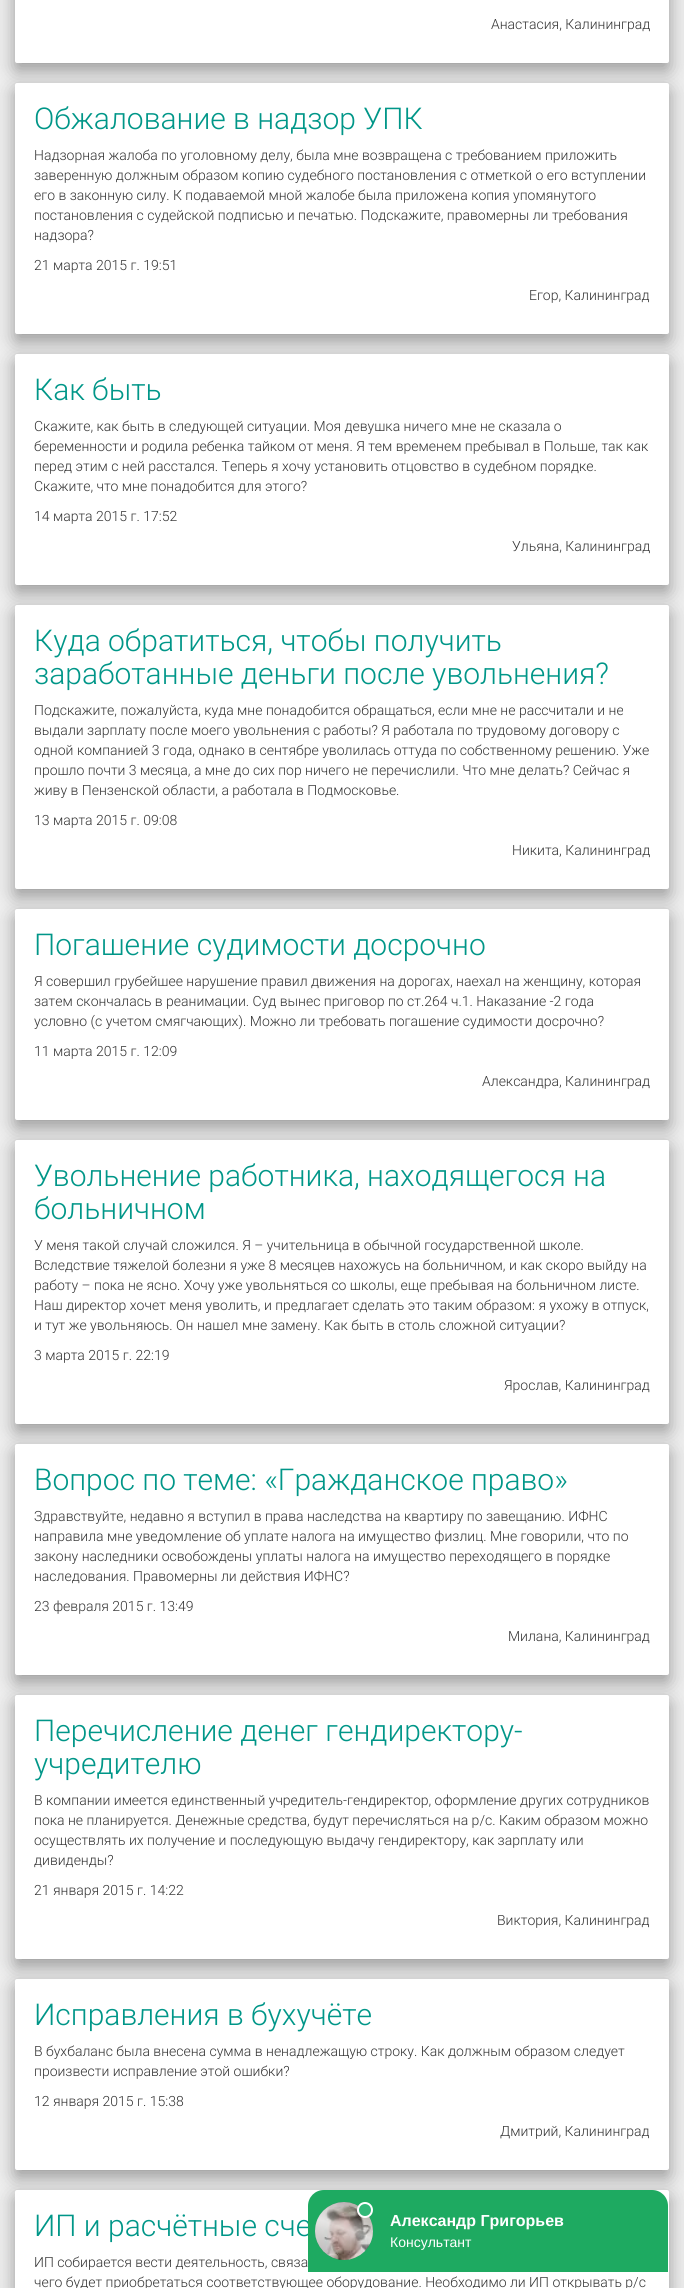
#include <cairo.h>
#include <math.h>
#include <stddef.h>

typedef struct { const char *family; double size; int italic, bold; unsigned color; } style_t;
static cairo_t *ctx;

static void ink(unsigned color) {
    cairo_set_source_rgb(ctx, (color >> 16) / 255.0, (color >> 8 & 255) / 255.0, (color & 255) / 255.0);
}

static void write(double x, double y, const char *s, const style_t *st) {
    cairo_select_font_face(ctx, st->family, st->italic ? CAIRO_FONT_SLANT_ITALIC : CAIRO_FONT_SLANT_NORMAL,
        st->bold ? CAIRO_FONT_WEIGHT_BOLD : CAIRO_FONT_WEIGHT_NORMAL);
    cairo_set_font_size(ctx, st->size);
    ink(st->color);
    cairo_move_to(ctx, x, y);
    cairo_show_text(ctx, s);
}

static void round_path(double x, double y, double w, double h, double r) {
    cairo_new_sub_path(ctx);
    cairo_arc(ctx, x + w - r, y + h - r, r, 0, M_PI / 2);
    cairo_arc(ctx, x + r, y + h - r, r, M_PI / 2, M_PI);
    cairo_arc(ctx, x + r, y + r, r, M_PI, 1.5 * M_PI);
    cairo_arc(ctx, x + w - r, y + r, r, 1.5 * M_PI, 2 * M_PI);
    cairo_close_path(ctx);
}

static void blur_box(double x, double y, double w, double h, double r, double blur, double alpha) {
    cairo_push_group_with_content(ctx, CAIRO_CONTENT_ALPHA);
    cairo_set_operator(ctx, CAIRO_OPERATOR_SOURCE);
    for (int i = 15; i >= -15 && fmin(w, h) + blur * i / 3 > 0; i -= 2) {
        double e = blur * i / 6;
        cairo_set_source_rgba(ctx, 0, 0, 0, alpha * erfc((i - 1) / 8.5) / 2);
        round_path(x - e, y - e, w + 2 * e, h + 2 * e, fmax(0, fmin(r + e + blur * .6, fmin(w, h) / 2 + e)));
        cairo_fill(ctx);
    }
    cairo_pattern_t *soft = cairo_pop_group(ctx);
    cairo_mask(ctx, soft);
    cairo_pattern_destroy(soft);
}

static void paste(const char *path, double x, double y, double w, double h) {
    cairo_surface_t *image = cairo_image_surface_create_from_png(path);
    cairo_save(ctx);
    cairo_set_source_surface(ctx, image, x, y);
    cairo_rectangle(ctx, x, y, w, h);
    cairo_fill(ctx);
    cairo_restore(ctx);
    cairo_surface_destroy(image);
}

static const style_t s1 = {"Roboto Light", 14, 0, 0, 0x333333};
static const style_t s2 = {"Roboto Light", 30, 0, 0, 0x009688};
static const style_t s3 = {"Liberation Sans", 16, 0, 1, 0xffffff};
static const style_t s4 = {"Liberation Sans", 14, 0, 0, 0xffffff};

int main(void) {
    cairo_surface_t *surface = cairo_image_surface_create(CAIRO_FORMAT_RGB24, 684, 2288);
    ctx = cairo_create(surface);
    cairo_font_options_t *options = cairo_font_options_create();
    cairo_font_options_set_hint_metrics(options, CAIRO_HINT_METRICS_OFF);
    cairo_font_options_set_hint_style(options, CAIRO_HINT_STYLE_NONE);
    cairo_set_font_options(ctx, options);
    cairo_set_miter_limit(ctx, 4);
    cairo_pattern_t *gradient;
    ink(0xeeeeee);
    cairo_paint(ctx);
    ink(0x000000);
    blur_box(15, -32, 654, 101, 2, 10, 0.19);
    blur_box(15, -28, 654, 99, 2, 8.5, 0.2);
    ink(0xffffff);
    round_path(15, -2, 654, 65, 2);
    cairo_fill(ctx);
    write(491, 29, "Анастасия, Калининград", &s1);
    ink(0x000000);
    blur_box(15, 89, 654, 251, 2, 10, 0.19);
    blur_box(15, 91, 654, 251, 2, 8.5, 0.2);
    ink(0xffffff);
    round_path(15, 83, 654, 251, 2);
    cairo_fill(ctx);
    write(34, 129, "Обжалование в надзор УПК", &s2);
    write(34, 160, "Надзорная жалоба по уголовному делу, была мне возвращена с требованием приложить", &s1);
    write(34, 180, "заверенную должным образом копию судебного постановления с отметкой о его вступлении", &s1);
    write(34, 200, "его в законную силу. К подаваемой мной жалобе была приложена копия упомянутого", &s1);
    write(34, 220, "постановления с судейской подписью и печатью. Подскажите, правомерны ли требования", &s1);
    write(34, 240, "надзора?", &s1);
    write(34, 270, "21 марта 2015 г. 19:51", &s1);
    write(529, 300, "Егор, Калининград", &s1);
    ink(0x000000);
    blur_box(15, 360, 654, 231, 2, 10, 0.19);
    blur_box(15, 362, 654, 231, 2, 8.5, 0.2);
    ink(0xffffff);
    round_path(15, 354, 654, 231, 2);
    cairo_fill(ctx);
    write(34, 400, "Как быть", &s2);
    write(34, 431, "Скажите, как быть в следующей ситуации. Моя девушка ничего мне не сказала о", &s1);
    write(34, 451, "беременности и родила ребенка тайком от меня. Я тем временем пребывал в Польше, так как", &s1);
    write(34, 471, "перед этим с ней расстался. Теперь я хочу установить отцовство в судебном порядке.", &s1);
    write(34, 491, "Скажите, что мне понадобится для этого?", &s1);
    write(34, 521, "14 марта 2015 г. 17:52", &s1);
    write(512, 551, "Ульяна, Калининград", &s1);
    ink(0x000000);
    blur_box(15, 611, 654, 284, 2, 10, 0.19);
    blur_box(15, 613, 654, 284, 2, 8.5, 0.2);
    ink(0xffffff);
    round_path(15, 605, 654, 284, 2);
    cairo_fill(ctx);
    write(34, 651, "Куда обратиться, чтобы получить", &s2);
    write(34, 684, "заработанные деньги после увольнения?", &s2);
    write(34, 715, "Подскажите, пожалуйста, куда мне понадобится обращаться, если мне не рассчитали и не", &s1);
    write(34, 735, "выдали зарплату после моего увольнения с работы? Я работала по трудовому договору с", &s1);
    write(34, 755, "одной компанией 3 года, однако в сентябре уволилась оттуда по собственному решению. Уже", &s1);
    write(34, 775, "прошло почти 3 месяца, а мне до сих пор ничего не перечислили. Что мне делать? Сейчас я", &s1);
    write(34, 795, "живу в Пензенской области, а работала в Подмосковье.", &s1);
    write(34, 825, "13 марта 2015 г. 09:08", &s1);
    write(512, 855, "Никита, Калининград", &s1);
    ink(0x000000);
    blur_box(15, 915, 654, 211, 2, 10, 0.19);
    blur_box(15, 917, 654, 211, 2, 8.5, 0.2);
    ink(0xffffff);
    round_path(15, 909, 654, 211, 2);
    cairo_fill(ctx);
    write(34, 955, "Погашение судимости досрочно", &s2);
    write(34, 986, "Я совершил грубейшее нарушение правил движения на дорогах, наехал на женщину, которая", &s1);
    write(34, 1006, "затем скончалась в реанимации. Суд вынес приговор по ст.264 ч.1. Наказание -2 года", &s1);
    write(34, 1026, "условно (с учетом смягчающих). Можно ли требовать погашение судимости досрочно?", &s1);
    write(34, 1056, "11 марта 2015 г. 12:09", &s1);
    write(482, 1086, "Александра, Калининград", &s1);
    ink(0x000000);
    blur_box(15, 1146, 654, 284, 2, 10, 0.19);
    blur_box(15, 1148, 654, 284, 2, 8.5, 0.2);
    ink(0xffffff);
    round_path(15, 1140, 654, 284, 2);
    cairo_fill(ctx);
    write(34, 1186, "Увольнение работника, находящегося на", &s2);
    write(34, 1219, "больничном", &s2);
    write(34, 1250, "У меня такой случай сложился. Я – учительница в обычной государственной школе.", &s1);
    write(34, 1270, "Вследствие тяжелой болезни я уже 8 месяцев нахожусь на больничном, и как скоро выйду на", &s1);
    write(34, 1290, "работу – пока не ясно. Хочу уже увольняться со школы, еще пребывая на больничном листе.", &s1);
    write(34, 1310, "Наш директор хочет меня уволить, и предлагает сделать это таким образом: я ухожу в отпуск,", &s1);
    write(34, 1330, "и тут же увольняюсь. Он нашел мне замену. Как быть в столь сложной ситуации?", &s1);
    write(34, 1360, "3 марта 2015 г. 22:19", &s1);
    write(504, 1390, "Ярослав, Калининград", &s1);
    ink(0x000000);
    blur_box(15, 1450, 654, 231, 2, 10, 0.19);
    blur_box(15, 1452, 654, 231, 2, 8.5, 0.2);
    ink(0xffffff);
    round_path(15, 1444, 654, 231, 2);
    cairo_fill(ctx);
    write(34, 1490, "Вопрос по теме: «Гражданское право»", &s2);
    write(34, 1521, "Здравствуйте, недавно я вступил в права наследства на квартиру по завещанию. ИФНС", &s1);
    write(34, 1541, "направила мне уведомление об уплате налога на имущество физлиц. Мне говорили, что по", &s1);
    write(34, 1561, "закону наследники освобождены уплаты налога на имущество переходящего в порядке", &s1);
    write(34, 1581, "наследования. Правомерны ли действия ИФНС?", &s1);
    write(34, 1611, "23 февраля 2015 г. 13:49", &s1);
    write(508, 1641, "Милана, Калининград", &s1);
    ink(0x000000);
    blur_box(15, 1701, 654, 264, 2, 10, 0.19);
    blur_box(15, 1703, 654, 264, 2, 8.5, 0.2);
    ink(0xffffff);
    round_path(15, 1695, 654, 264, 2);
    cairo_fill(ctx);
    write(34, 1741, "Перечисление денег гендиректору-", &s2);
    write(34, 1774, "учредителю", &s2);
    write(34, 1805, "В компании имеется единственный учредитель-гендиректор, оформление других сотрудников", &s1);
    write(34, 1825, "пока не планируется. Денежные средства, будут перечисляться на р/с. Каким образом можно", &s1);
    write(34, 1845, "осуществлять их получение и последующую выдачу гендиректору, как зарплату или", &s1);
    write(34, 1865, "дивиденды?", &s1);
    write(34, 1895, "21 января 2015 г. 14:22", &s1);
    write(497, 1925, "Виктория, Калининград", &s1);
    ink(0x000000);
    blur_box(15, 1985, 654, 191, 2, 10, 0.19);
    blur_box(15, 1987, 654, 191, 2, 8.5, 0.2);
    ink(0xffffff);
    round_path(15, 1979, 654, 191, 2);
    cairo_fill(ctx);
    write(34, 2025, "Исправления в бухучёте", &s2);
    write(34, 2056, "В бухбаланс была внесена сумма в ненадлежащую строку. Как должным образом следует", &s1);
    write(34, 2076, "произвести исправление этой ошибки?", &s1);
    write(34, 2106, "12 января 2015 г. 15:38", &s1);
    write(500, 2136, "Дмитрий, Калининград", &s1);
    ink(0x000000);
    blur_box(15, 2196, 654, 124, 2, 10, 0.19);
    blur_box(15, 2198, 654, 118, 2, 8.5, 0.2);
    ink(0xffffff);
    round_path(15, 2190, 654, 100, 2);
    cairo_fill(ctx);
    write(34, 2236, "ИП и расчётные сче", &s2);
    write(34, 2267, "ИП собирается вести деятельность, связа", &s1);
    write(34, 2287, "чего будет приобретаться соответствующее оборудование. Необходимо ли ИП открывать р/с", &s1);
    ink(0x1eaa61);
    cairo_new_path(ctx);
    cairo_move_to(ctx, 324, 2190);
    cairo_line_to(ctx, 652, 2190);
    cairo_curve_to(ctx, 661, 2190, 668, 2197, 668, 2206);
    cairo_line_to(ctx, 668, 2272);
    cairo_line_to(ctx, 308, 2272);
    cairo_line_to(ctx, 308, 2206);
    cairo_curve_to(ctx, 308, 2197, 315, 2190, 324, 2190);
    cairo_close_path(ctx);
    cairo_fill(ctx);
    ink(0x178049);
    cairo_arc(ctx, 344, 2231, 29, 0, 2 * M_PI);
    cairo_fill(ctx);
    paste("pic1.png", 315, 2202, 58, 58);
    gradient = cairo_pattern_create_linear(354, 2207, 334, 2262);
    cairo_pattern_add_color_stop_rgba(gradient, 0, 1, 1, 1, 0);
    cairo_pattern_add_color_stop_rgba(gradient, 0.4, 1, 1, 1, 0.6);
    cairo_pattern_add_color_stop_rgba(gradient, 0.6, 1, 1, 1, 0.36);
    cairo_pattern_add_color_stop_rgba(gradient, 1, 1, 1, 1, 0);
    cairo_set_source(ctx, gradient);
    cairo_pattern_destroy(gradient);
    cairo_new_path(ctx);
    cairo_move_to(ctx, 341, 2202);
    cairo_line_to(ctx, 365, 2211);
    cairo_curve_to(ctx, 370, 2216, 373, 2223, 373, 2231);
    cairo_curve_to(ctx, 373, 2247, 360, 2260, 344, 2260);
    cairo_curve_to(ctx, 328, 2260, 315, 2247, 315, 2231);
    cairo_curve_to(ctx, 315, 2216, 326, 2204, 341, 2202);
    cairo_close_path(ctx);
    cairo_fill(ctx);
    ink(0x31b978);
    cairo_arc(ctx, 365, 2210, 7, 0, 2 * M_PI);
    cairo_fill_preserve(ctx);
    ink(0xffffff);
    cairo_stroke(ctx);
    write(390, 2226, "Александр Григорьев", &s3);
    write(390, 2247, "Консультант", &s4);
    cairo_surface_write_to_png(surface, "screenshot.png");
    cairo_font_options_destroy(options);
    cairo_destroy(ctx);
    cairo_surface_destroy(surface);
    return 0;
}
